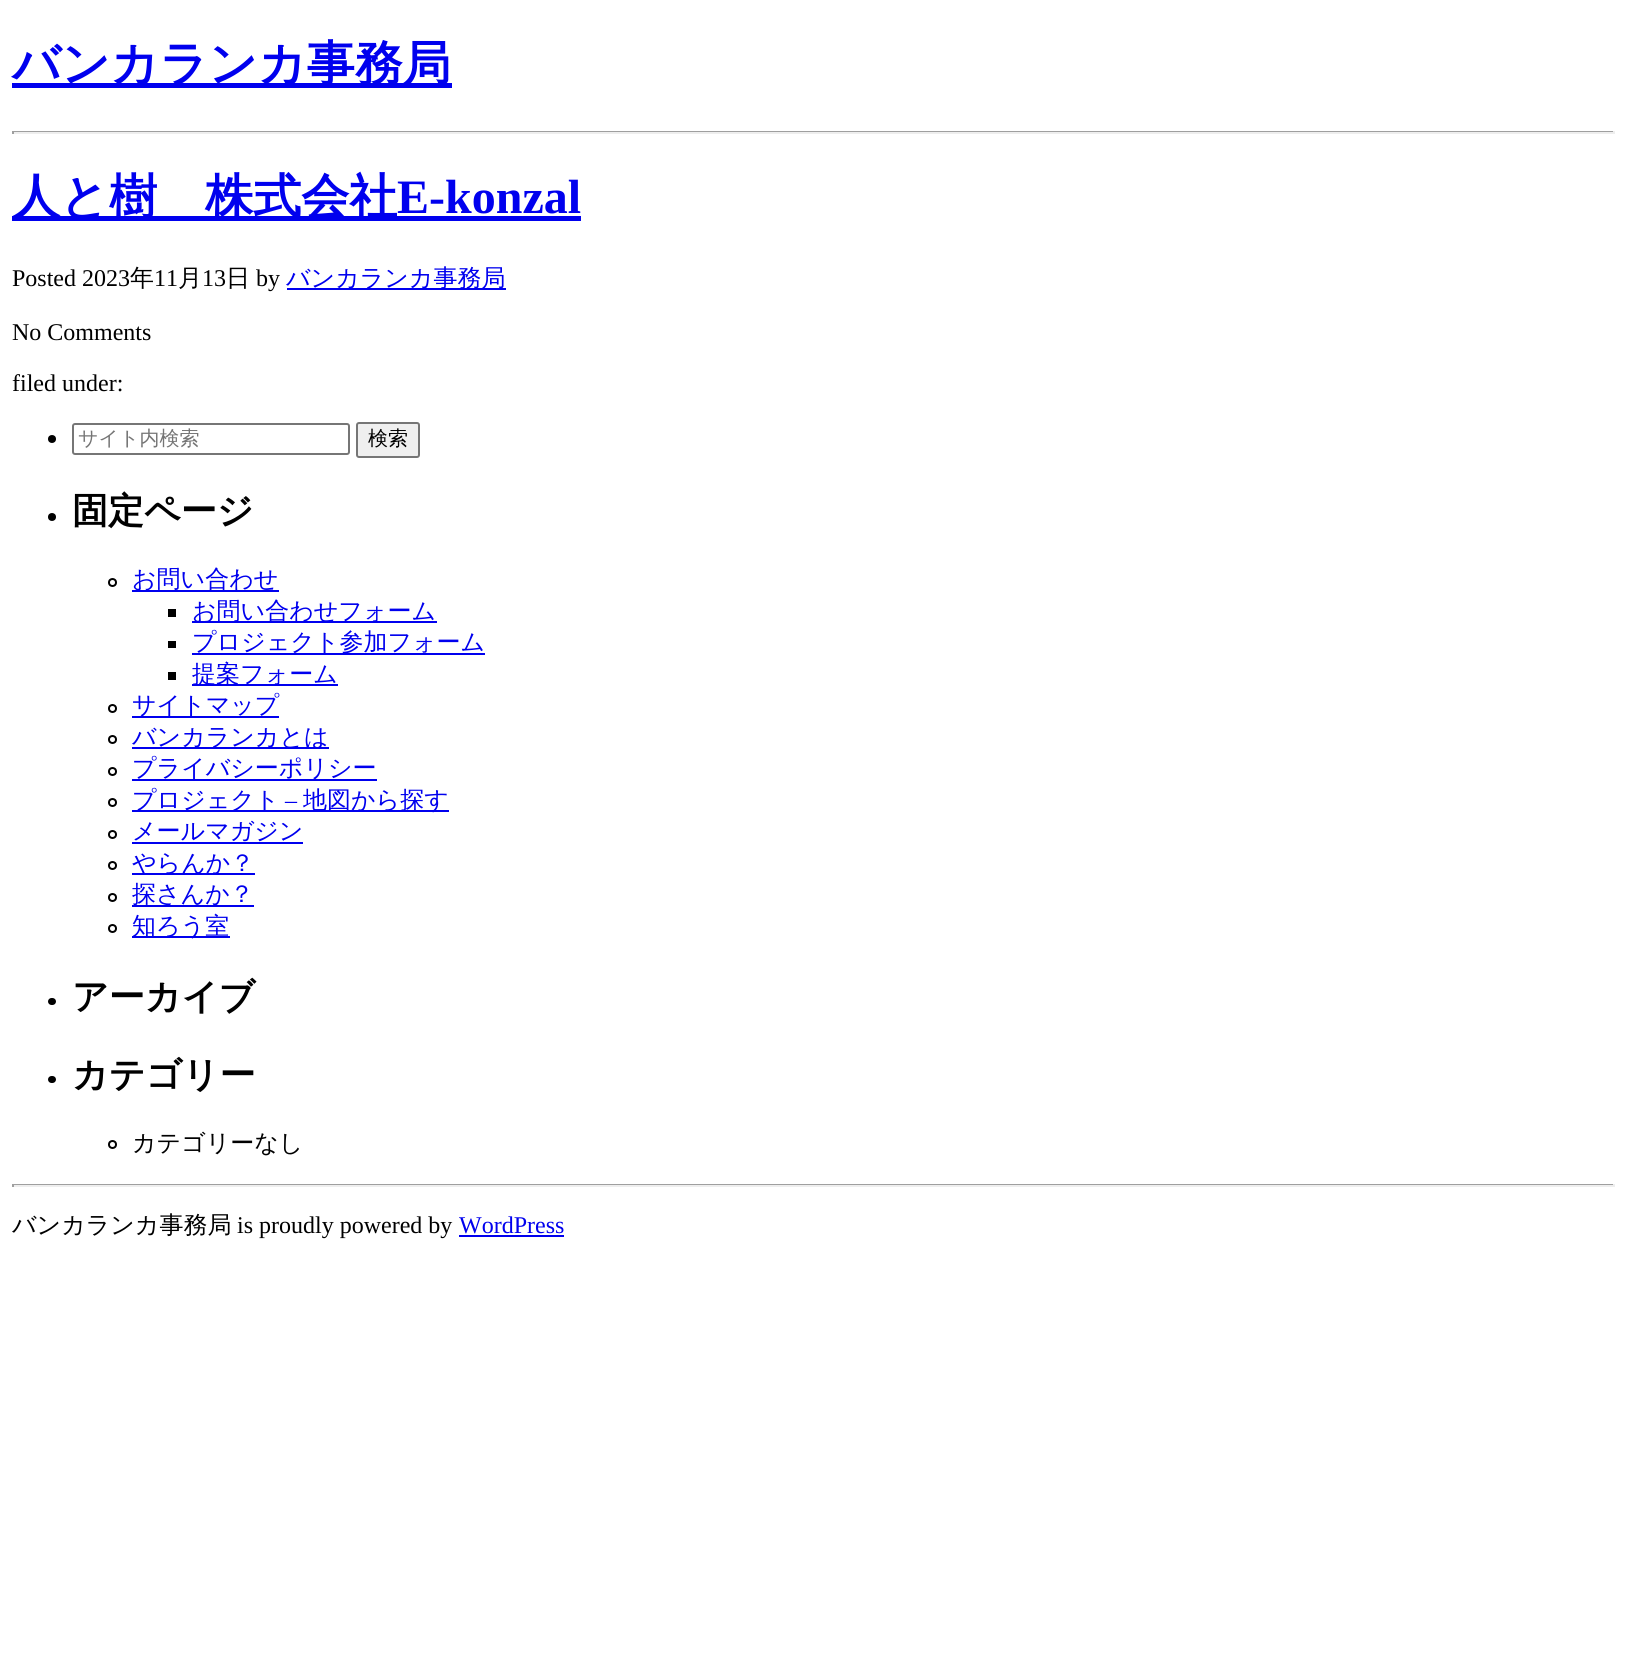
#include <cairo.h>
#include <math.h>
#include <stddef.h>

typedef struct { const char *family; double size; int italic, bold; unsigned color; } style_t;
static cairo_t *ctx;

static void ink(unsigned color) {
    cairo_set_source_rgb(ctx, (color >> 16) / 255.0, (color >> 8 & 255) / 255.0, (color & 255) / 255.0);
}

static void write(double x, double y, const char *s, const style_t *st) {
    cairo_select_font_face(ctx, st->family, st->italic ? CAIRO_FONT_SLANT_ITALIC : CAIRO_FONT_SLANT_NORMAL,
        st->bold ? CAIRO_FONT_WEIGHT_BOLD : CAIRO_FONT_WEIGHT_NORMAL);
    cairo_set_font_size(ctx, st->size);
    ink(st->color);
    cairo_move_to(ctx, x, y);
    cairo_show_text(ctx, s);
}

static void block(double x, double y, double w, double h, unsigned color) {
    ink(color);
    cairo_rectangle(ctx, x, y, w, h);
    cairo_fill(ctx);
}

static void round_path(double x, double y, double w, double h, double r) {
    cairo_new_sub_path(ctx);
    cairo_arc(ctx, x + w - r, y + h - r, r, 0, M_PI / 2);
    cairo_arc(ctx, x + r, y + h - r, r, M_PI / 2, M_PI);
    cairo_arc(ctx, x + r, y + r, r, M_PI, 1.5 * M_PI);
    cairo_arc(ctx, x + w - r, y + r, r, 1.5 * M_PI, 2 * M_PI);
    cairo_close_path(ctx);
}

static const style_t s1 = {"WenQuanYi Zen Hei", 48, 0, 1, 0x0000ee};
static const style_t s2 = {"Liberation Serif", 48, 0, 1, 0x0000ee};
static const style_t s3 = {"Liberation Serif", 24, 0, 0, 0x000000};
static const style_t s4 = {"WenQuanYi Zen Hei Medium", 24, 0, 0, 0x000000};
static const style_t s5 = {"WenQuanYi Zen Hei Medium", 24, 0, 0, 0x0000ee};
static const style_t s6 = {"WenQuanYi Zen Hei Medium", 20, 0, 0, 0x757575};
static const style_t s7 = {"WenQuanYi Zen Hei Medium", 20, 0, 0, 0x000000};
static const style_t s8 = {"WenQuanYi Zen Hei", 36, 0, 1, 0x000000};
static const style_t s9 = {"Liberation Serif", 24, 0, 0, 0x0000ee};

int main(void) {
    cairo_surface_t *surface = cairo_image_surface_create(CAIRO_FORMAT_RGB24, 1625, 1657);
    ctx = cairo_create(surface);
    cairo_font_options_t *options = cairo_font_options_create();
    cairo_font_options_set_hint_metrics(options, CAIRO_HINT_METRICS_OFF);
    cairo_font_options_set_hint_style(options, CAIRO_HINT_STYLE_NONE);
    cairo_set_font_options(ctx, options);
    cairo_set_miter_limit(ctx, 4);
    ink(0xffffff);
    cairo_paint(ctx);
    block(12, 83, 440, 5, 0x0000ee);
    write(12, 80, "バンカランカ事務局", &s1);
    block(12, 131, 1602, 1, 0x9f9f9f);
    block(1613, 131, 2, 3, 0xeeeeee);
    block(12, 132, 1602, 2, 0xeeeeee);
    block(12, 131, 2, 3, 0x9f9f9f);
    block(12, 216, 569, 5, 0x0000ee);
    write(12, 213, "人と樹　株式会社", &s1);
    write(397, 213, "E-konzal", &s2);
    write(12, 286, "Posted 2023", &s3);
    write(130, 286, "年", &s4);
    write(154, 286, "11", &s3);
    write(178, 286, "月", &s4);
    write(202, 286, "13", &s3);
    write(226, 286, "日", &s4);
    write(256, 286, "by", &s3);
    block(287, 288, 219, 2, 0x0000ee);
    write(286, 286, "バンカランカ事務局", &s5);
    write(12, 340, "No Comments", &s3);
    write(12, 391, "filed under:", &s3);
    cairo_new_path(ctx);
    cairo_arc(ctx, 52, 439, 4, 0, 2 * M_PI);
    cairo_fill(ctx);
    round_path(73, 424, 276, 30, 2);
    ink(0x767676);
    cairo_stroke(ctx);
    write(78, 445, "サイト内検索", &s6);
    ink(0xefefef);
    round_path(357, 423, 62, 34, 2);
    cairo_fill_preserve(ctx);
    ink(0x767676);
    cairo_stroke(ctx);
    write(368, 445, "検索", &s7);
    cairo_new_path(ctx);
    cairo_arc(ctx, 52, 517, 4, 0, 2 * M_PI);
    cairo_fill(ctx);
    write(72, 523, "固定ページ", &s8);
    cairo_new_path(ctx);
    cairo_arc(ctx, 112.5, 582.5, 3.5, 0, 2 * M_PI);
    cairo_stroke(ctx);
    block(132, 590, 147, 2, 0x0000ee);
    write(132, 587, "お問い合わせ", &s5);
    block(168, 609, 8, 8, 0x000000);
    block(192, 621, 245, 2, 0x0000ee);
    write(192, 619, "お問い合わせフォーム", &s5);
    block(168, 641, 8, 7, 0x000000);
    block(192, 653, 293, 2, 0x0000ee);
    write(192, 650, "プロジェクト参加フォーム", &s5);
    block(168, 672, 8, 8, 0x000000);
    block(192, 684, 146, 2, 0x0000ee);
    write(192, 682, "提案フォーム", &s5);
    cairo_new_path(ctx);
    cairo_arc(ctx, 112.5, 708.5, 3.5, 0, 2 * M_PI);
    ink(0x000000);
    cairo_stroke(ctx);
    block(132, 716, 147, 2, 0x0000ee);
    write(132, 713, "サイトマップ", &s5);
    cairo_new_path(ctx);
    cairo_arc(ctx, 112.5, 739.5, 3.5, 0, 2 * M_PI);
    ink(0x000000);
    cairo_stroke(ctx);
    block(132, 747, 197, 2, 0x0000ee);
    write(132, 745, "バンカランカとは", &s5);
    cairo_new_path(ctx);
    cairo_arc(ctx, 112.5, 771.5, 3.5, 0, 2 * M_PI);
    ink(0x000000);
    cairo_stroke(ctx);
    block(132, 779, 245, 2, 0x0000ee);
    write(132, 776, "プライバシーポリシー", &s5);
    cairo_new_path(ctx);
    cairo_arc(ctx, 112.5, 802.5, 3.5, 0, 2 * M_PI);
    ink(0x000000);
    cairo_stroke(ctx);
    block(132, 810, 317, 2, 0x0000ee);
    write(132, 808, "プロジェクト", &s5);
    write(285, 808, "–", &s9);
    write(303, 808, "地図から探す", &s5);
    cairo_new_path(ctx);
    cairo_arc(ctx, 112.5, 834.5, 3.5, 0, 2 * M_PI);
    ink(0x000000);
    cairo_stroke(ctx);
    write(132, 839, "メールマガジン", &s5);
    block(132, 842, 171, 2, 0x0000ee);
    cairo_new_path(ctx);
    cairo_arc(ctx, 112.5, 865.5, 3.5, 0, 2 * M_PI);
    ink(0x000000);
    cairo_stroke(ctx);
    block(132, 873, 123, 2, 0x0000ee);
    write(132, 871, "やらんか？", &s5);
    cairo_new_path(ctx);
    cairo_arc(ctx, 112.5, 897.5, 3.5, 0, 2 * M_PI);
    ink(0x000000);
    cairo_stroke(ctx);
    block(132, 905, 122, 2, 0x0000ee);
    write(132, 902, "探さんか？", &s5);
    cairo_new_path(ctx);
    cairo_arc(ctx, 112.5, 928.5, 3.5, 0, 2 * M_PI);
    ink(0x000000);
    cairo_stroke(ctx);
    block(132, 936, 98, 2, 0x0000ee);
    write(132, 934, "知ろう室", &s5);
    ink(0x000000);
    round_path(48, 998, 8, 7, 3.5);
    cairo_fill(ctx);
    write(72, 1009, "アーカイブ", &s8);
    round_path(48, 1076, 8, 7, 3.5);
    cairo_fill(ctx);
    write(72, 1087, "カテゴリー", &s8);
    cairo_new_path(ctx);
    cairo_arc(ctx, 112.5, 1144.5, 3.5, 0, 2 * M_PI);
    cairo_stroke(ctx);
    write(132, 1151, "カテゴリーなし", &s4);
    block(12, 1184, 1602, 1, 0x9f9f9f);
    block(1613, 1184, 2, 3, 0xeeeeee);
    block(12, 1185, 1602, 2, 0xeeeeee);
    block(12, 1184, 2, 3, 0x9f9f9f);
    write(12, 1233, "バンカランカ事務局", &s4);
    write(237, 1233, "is proudly powered by", &s3);
    write(459, 1233, "WordPress", &s9);
    block(459, 1235, 105, 2, 0x0000ee);
    cairo_surface_write_to_png(surface, "screenshot.png");
    cairo_font_options_destroy(options);
    cairo_destroy(ctx);
    cairo_surface_destroy(surface);
    return 0;
}
